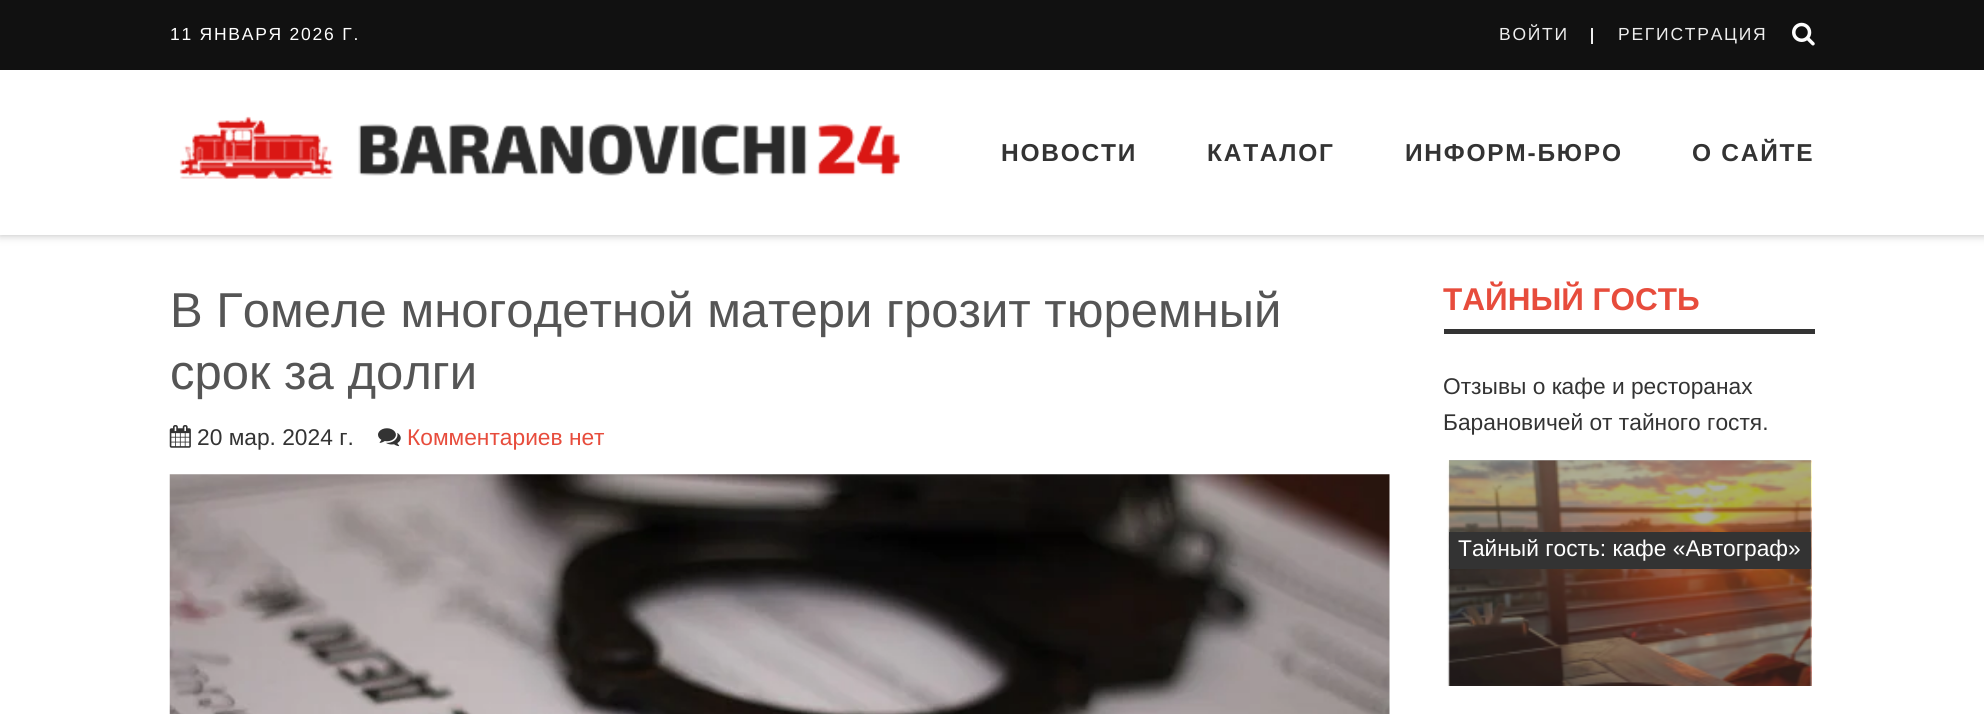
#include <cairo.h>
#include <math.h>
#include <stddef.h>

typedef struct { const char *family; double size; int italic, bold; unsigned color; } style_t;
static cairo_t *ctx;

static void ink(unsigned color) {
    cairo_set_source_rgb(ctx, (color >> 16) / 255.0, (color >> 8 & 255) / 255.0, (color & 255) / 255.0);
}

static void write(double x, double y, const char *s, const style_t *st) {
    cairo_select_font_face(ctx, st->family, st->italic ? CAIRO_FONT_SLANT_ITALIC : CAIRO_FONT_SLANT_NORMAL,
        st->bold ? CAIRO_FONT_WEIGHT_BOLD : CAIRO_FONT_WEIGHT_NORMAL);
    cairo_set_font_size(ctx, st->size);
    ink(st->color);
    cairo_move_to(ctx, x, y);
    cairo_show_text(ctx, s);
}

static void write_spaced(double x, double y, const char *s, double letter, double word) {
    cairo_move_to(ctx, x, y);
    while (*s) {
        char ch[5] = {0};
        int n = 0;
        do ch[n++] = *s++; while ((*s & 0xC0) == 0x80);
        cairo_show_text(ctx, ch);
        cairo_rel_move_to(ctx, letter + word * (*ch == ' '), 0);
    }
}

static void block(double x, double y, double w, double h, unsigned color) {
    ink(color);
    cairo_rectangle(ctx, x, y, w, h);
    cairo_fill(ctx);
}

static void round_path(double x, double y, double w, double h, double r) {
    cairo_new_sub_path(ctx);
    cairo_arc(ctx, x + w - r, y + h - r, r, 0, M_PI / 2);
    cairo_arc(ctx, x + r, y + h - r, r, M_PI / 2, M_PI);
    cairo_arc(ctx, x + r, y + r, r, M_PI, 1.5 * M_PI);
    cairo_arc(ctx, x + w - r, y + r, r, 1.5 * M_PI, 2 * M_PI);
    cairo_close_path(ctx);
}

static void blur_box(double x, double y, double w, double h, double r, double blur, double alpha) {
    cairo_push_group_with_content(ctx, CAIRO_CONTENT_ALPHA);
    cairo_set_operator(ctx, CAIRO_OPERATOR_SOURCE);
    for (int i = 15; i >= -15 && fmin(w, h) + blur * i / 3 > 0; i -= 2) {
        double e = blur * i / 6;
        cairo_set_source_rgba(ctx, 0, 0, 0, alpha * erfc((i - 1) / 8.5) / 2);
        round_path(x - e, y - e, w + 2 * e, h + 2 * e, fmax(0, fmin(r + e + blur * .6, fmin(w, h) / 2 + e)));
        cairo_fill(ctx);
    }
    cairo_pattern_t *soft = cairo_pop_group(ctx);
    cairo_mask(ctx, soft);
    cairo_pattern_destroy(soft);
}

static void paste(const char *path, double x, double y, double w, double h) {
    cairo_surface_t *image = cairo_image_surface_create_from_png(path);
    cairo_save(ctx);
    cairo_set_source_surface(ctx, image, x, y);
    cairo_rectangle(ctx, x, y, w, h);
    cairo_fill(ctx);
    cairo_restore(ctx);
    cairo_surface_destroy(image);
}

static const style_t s1 = {"Liberation Sans", 49, 0, 0, 0x555555};
static const style_t s2 = {"Liberation Sans", 22.75, 0, 0, 0x333333};
static const style_t s3 = {"Liberation Sans", 22.75, 0, 0, 0xe74c3c};
static const style_t s4 = {"Liberation Sans", 31.5, 0, 1, 0xe74c3c};
static const style_t s5 = {"Liberation Sans", 22.75, 0, 0, 0xffffff};

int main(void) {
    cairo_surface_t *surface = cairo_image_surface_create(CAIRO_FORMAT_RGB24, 1984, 714);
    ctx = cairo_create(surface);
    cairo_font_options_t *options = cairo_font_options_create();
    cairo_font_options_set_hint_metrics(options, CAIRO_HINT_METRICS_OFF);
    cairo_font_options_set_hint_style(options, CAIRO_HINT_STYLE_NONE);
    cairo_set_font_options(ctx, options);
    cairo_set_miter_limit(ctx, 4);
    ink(0xffffff);
    cairo_paint(ctx);
    block(1449, 460, 362, 226, 0xadadad);
    ink(0xbbbbbb);
    blur_box(0, 0, 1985, 235, 0, 4.5, 1);
    block(0, 70, 1984, 165, 0xffffff);
    block(0, 0, 1984, 70, 0x111111);
    cairo_select_font_face(ctx, "Liberation Sans", CAIRO_FONT_SLANT_NORMAL, CAIRO_FONT_WEIGHT_NORMAL);
    cairo_set_font_size(ctx, 17.5);
    ink(0xffffff);
    write_spaced(170, 40, "11 ЯНВАРЯ 2026 Г.", 1.75, 0);
    ink(0xeeeeee);
    write_spaced(1499, 40, "ВОЙТИ", 1.75, 0);
    block(1591, 28, 2, 16, 0xeeeeee);
    write_spaced(1618, 40, "РЕГИСТРАЦИЯ", 1.75, 0);
    paste("pic1.png", 1792, 22, 23, 24);
    paste("pic2.png", 179, 116, 721, 63);
    cairo_select_font_face(ctx, "Liberation Sans", CAIRO_FONT_SLANT_NORMAL, CAIRO_FONT_WEIGHT_BOLD);
    cairo_set_font_size(ctx, 24.5);
    ink(0x333333);
    write_spaced(1001, 161, "НОВОСТИ", 1.75, 0);
    write_spaced(1207, 161, "КАТАЛОГ", 1.75, 0);
    write_spaced(1405, 161, "ИНФОРМ-БЮРО", 1.75, 0);
    write_spaced(1692, 161, "О САЙТЕ", 1.75, 0);
    write(170, 327, "В Гомеле многодетной матери грозит тюремный", &s1);
    write(170, 389, "срок за долги", &s1);
    paste("pic3.png", 169, 425, 22, 23);
    write(197, 445, "20 мар. 2024 г.", &s2);
    paste("pic4.png", 378, 428, 23, 19);
    write(407, 445, "Комментариев нет", &s3);
    paste("pic5.png", 169, 474, 1221, 240);
    block(1444, 329, 371, 5, 0x333333);
    write(1443, 310, "ТАЙНЫЙ ГОСТЬ", &s4);
    write(1443, 394, "Отзывы о кафе и ресторанах", &s2);
    write(1443, 430, "Барановичей от тайного гостя.", &s2);
    paste("pic6.png", 1447, 460, 365, 226);
    block(1449, 532, 362, 37, 0x333333);
    write(1458, 556, "Тайный гость: кафе «Автограф»", &s5);
    cairo_surface_write_to_png(surface, "screenshot.png");
    cairo_font_options_destroy(options);
    cairo_destroy(ctx);
    cairo_surface_destroy(surface);
    return 0;
}
